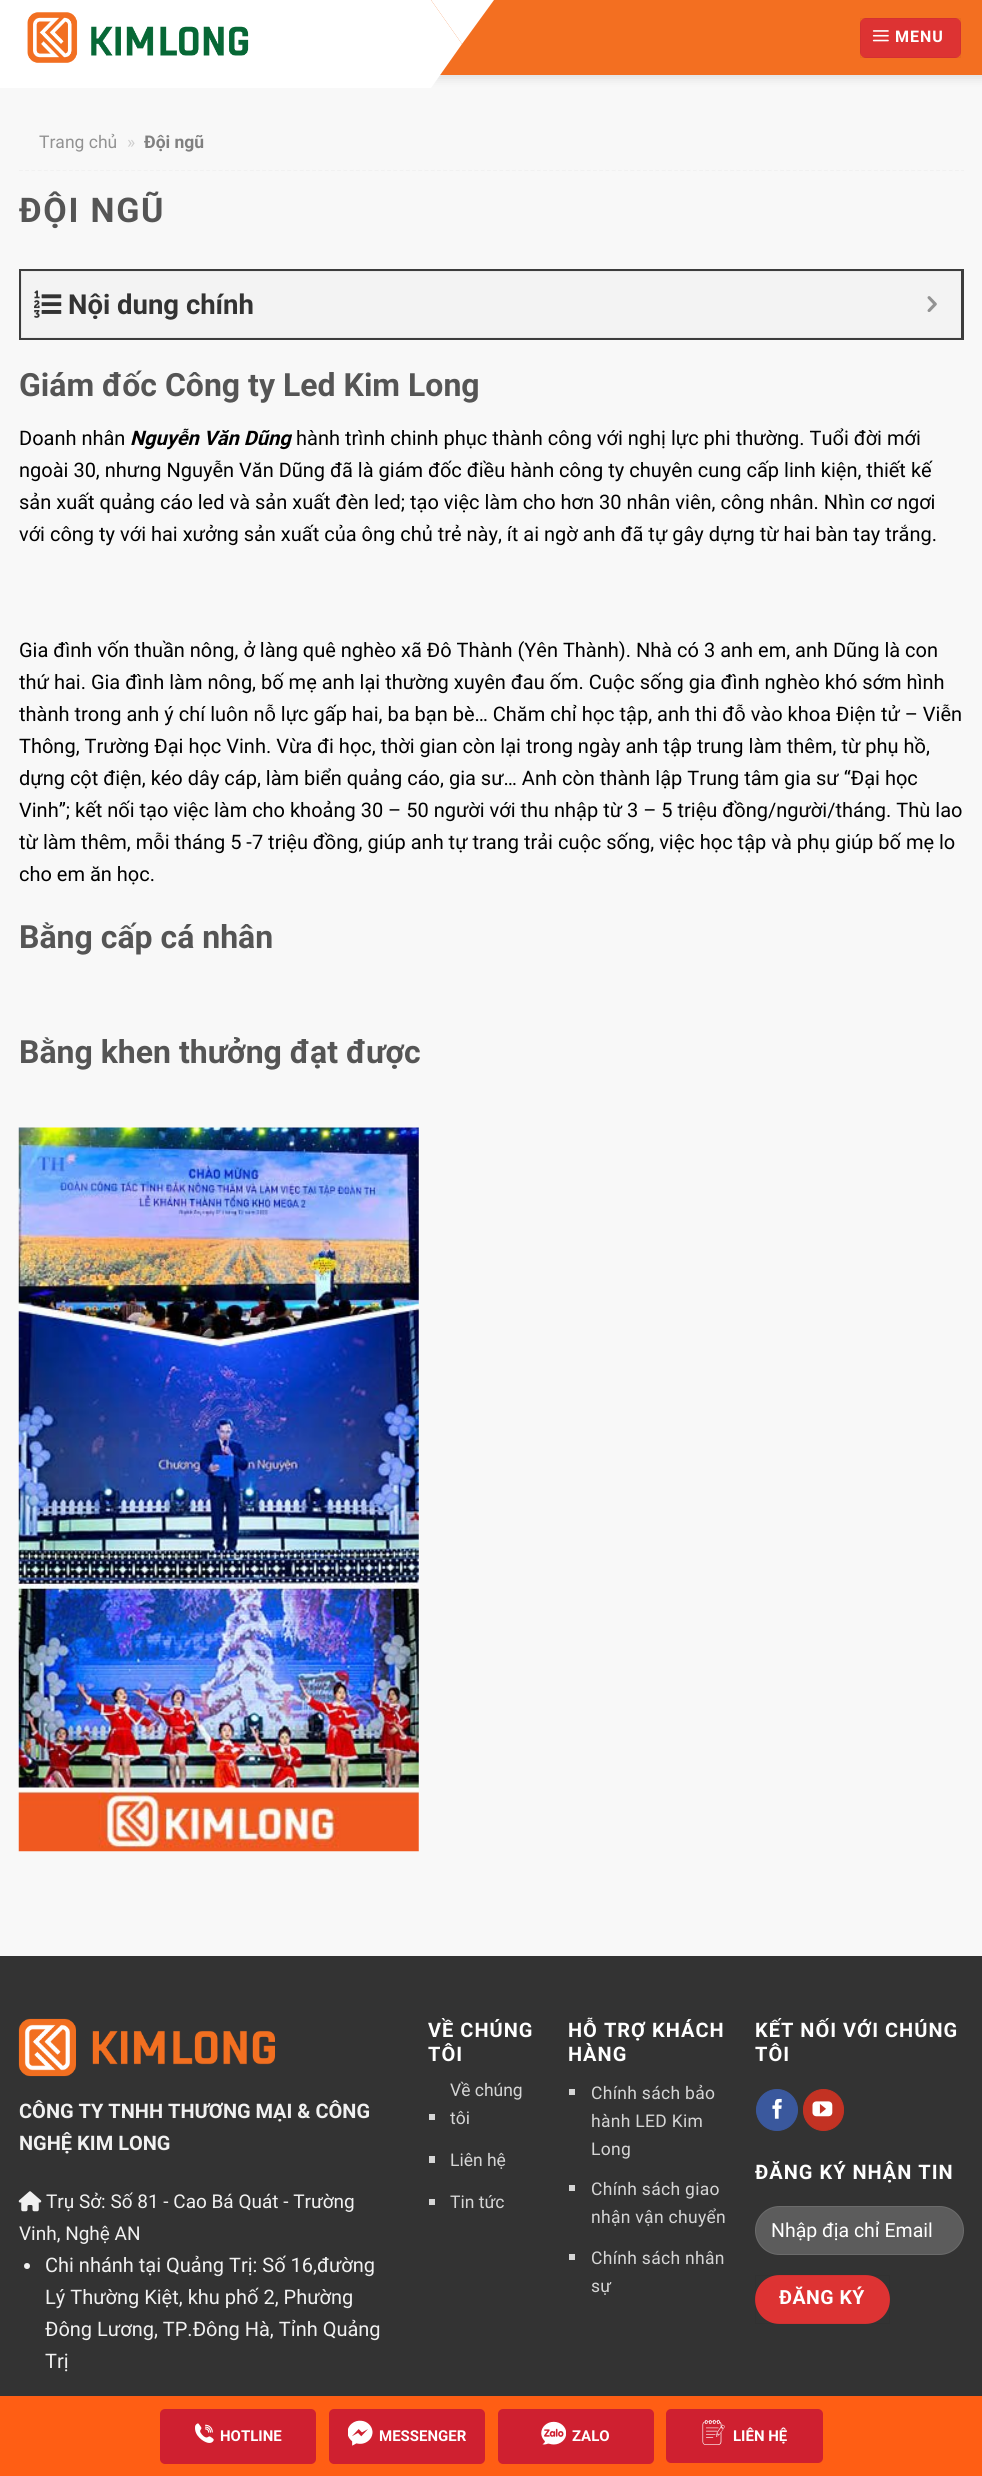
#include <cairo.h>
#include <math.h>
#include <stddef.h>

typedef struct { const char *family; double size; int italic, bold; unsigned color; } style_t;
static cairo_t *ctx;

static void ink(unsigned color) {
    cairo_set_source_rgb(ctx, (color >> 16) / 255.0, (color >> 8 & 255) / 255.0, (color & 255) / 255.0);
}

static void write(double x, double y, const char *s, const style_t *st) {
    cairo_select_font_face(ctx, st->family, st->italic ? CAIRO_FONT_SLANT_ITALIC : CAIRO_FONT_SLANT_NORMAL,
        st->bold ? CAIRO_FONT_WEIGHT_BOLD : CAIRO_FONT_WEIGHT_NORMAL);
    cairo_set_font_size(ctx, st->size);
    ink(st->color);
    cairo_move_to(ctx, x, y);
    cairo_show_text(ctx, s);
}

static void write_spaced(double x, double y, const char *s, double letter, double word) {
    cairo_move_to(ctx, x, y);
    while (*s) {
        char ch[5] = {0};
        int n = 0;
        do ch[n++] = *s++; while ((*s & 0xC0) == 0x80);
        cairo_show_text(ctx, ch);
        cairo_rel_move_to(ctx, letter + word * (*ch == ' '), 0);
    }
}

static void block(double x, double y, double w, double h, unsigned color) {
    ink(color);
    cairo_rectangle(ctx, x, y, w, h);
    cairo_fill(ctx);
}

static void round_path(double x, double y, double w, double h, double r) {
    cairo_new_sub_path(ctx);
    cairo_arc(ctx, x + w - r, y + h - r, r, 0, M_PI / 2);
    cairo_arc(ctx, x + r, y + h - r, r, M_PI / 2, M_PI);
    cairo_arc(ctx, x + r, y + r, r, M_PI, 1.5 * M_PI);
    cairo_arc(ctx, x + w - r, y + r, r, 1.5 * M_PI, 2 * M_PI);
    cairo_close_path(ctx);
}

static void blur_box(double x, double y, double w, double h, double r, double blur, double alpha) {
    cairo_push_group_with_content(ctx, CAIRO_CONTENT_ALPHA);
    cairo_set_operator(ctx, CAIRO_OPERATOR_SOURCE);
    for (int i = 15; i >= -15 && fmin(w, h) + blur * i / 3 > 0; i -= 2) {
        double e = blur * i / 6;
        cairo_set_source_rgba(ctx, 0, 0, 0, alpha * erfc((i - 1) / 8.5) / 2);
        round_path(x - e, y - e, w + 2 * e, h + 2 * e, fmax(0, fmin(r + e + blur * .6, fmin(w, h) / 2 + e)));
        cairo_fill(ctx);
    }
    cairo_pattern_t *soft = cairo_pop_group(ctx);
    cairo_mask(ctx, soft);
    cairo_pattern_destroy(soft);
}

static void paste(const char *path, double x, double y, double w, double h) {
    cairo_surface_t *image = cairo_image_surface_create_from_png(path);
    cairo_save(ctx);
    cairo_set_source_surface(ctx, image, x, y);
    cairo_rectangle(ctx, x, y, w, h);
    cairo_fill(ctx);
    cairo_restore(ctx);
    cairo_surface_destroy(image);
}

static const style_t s1 = {"Roboto", 17.5, 0, 0, 0x929292};
static const style_t s2 = {"Roboto", 17.5, 0, 0, 0xcecece};
static const style_t s3 = {"Roboto", 17.5, 0, 1, 0x808080};
static const style_t s4 = {"Roboto", 27.5, 0, 1, 0x333333};
static const style_t s5 = {"Roboto", 32, 0, 1, 0x555555};
static const style_t s6 = {"Roboto", 20, 0, 0, 0x000000};
static const style_t s7 = {"Roboto", 20, 1, 1, 0x000000};
static const style_t s8 = {"Roboto", 20, 0, 1, 0xf1f1f1};
static const style_t s9 = {"Roboto", 19, 0, 0, 0xf1f1f1};
static const style_t s10 = {"Roboto", 20, 0, 0, 0xf1f1f1};
static const style_t s11 = {"Roboto", 17.5, 0, 0, 0xd6d6d6};
static const style_t s12 = {"Roboto", 19.5, 0, 0, 0xffffff};
static const style_t s13 = {"Roboto", 15, 0, 1, 0xffffff};

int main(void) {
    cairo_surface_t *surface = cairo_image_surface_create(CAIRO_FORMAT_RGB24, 982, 2476);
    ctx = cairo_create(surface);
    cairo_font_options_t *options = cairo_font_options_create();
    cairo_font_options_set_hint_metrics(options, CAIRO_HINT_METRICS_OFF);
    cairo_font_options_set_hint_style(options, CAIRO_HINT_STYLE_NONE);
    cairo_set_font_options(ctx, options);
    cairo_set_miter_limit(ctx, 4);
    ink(0xf8f8f8);
    cairo_paint(ctx);
    ink(0x000000);
    blur_box(1, 1, 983, 75, 0, 6, 0.15);
    block(431, 0, 551, 75, 0xf36f21);
    block(0, 0, 431, 88, 0xffffff);
    cairo_new_path(ctx);
    cairo_move_to(ctx, 431, 0);
    cairo_line_to(ctx, 494, 0);
    cairo_line_to(ctx, 462, 44);
    cairo_close_path(ctx);
    cairo_fill(ctx);
    cairo_new_path(ctx);
    cairo_move_to(ctx, 431, 88);
    cairo_line_to(ctx, 431, 0);
    cairo_line_to(ctx, 462, 44);
    cairo_close_path(ctx);
    cairo_fill(ctx);
    paste("pic1.png", 27, 12, 222, 51);
    ink(0xdd3333);
    round_path(860, 18, 101, 40, 6);
    cairo_fill(ctx);
    cairo_rectangle(ctx, 860.5, 18.5, 100, 39);
    cairo_set_source_rgba(ctx, 0, 0, 0, 0.05);
    cairo_set_line_width(ctx, 1);
    cairo_stroke(ctx);
    paste("pic2.png", 872, 30, 17, 12);
    cairo_select_font_face(ctx, "Roboto", CAIRO_FONT_SLANT_NORMAL, CAIRO_FONT_WEIGHT_BOLD);
    cairo_set_font_size(ctx, 16);
    ink(0xffffff);
    write_spaced(895, 42, "MENU", 1, 0);
    cairo_new_path(ctx);
    cairo_move_to(ctx, 19, 170.5);
    cairo_line_to(ctx, 964, 170.5);
    ink(0xf1f1f1);
    cairo_set_line_width(ctx, 1.2);
    cairo_set_dash(ctx, (double[]){3.75, 2.49}, 2, 0);
    cairo_stroke(ctx);
    write(39, 148, "Trang chủ", &s1);
    write(127, 148, "»", &s2);
    write(144, 148, "Đội ngũ", &s3);
    cairo_set_font_size(ctx, 34);
    ink(0x555555);
    write_spaced(19, 222, "ĐỘI NGŨ", 1.75, 0);
    cairo_rectangle(ctx, 20.5, 270.5, 942, 68);
    ink(0x3d3d3d);
    cairo_set_line_width(ctx, 3);
    cairo_set_dash(ctx, NULL, 0, 0);
    cairo_stroke(ctx);
    cairo_set_source_rgba(ctx, 0.953, 0.953, 0.953, 0.95);
    cairo_rectangle(ctx, 21, 271, 940, 67);
    cairo_fill(ctx);
    paste("pic3.png", 34, 290, 28, 28);
    write(68, 314, "Nội dung chính", &s4);
    paste("pic4.png", 927, 296, 10, 16);
    write(19, 396, "Giám đốc Công ty Led Kim Long", &s5);
    write(19, 445, "Doanh nhân", &s6);
    write(130, 445, "Nguyễn Văn Dũng", &s7);
    write(296, 445, "hành trình chinh phục thành công với nghị lực phi thường. Tuổi đời mới", &s6);
    write(19, 477, "ngoài 30, nhưng Nguyễn Văn Dũng đã là giám đốc điều hành công ty chuyên cung cấp linh kiện, thiết kế", &s6);
    write(19, 509, "sản xuất quảng cáo led và sản xuất đèn led; tạo việc làm cho hơn 30 nhân viên, công nhân. Nhìn cơ ngơi", &s6);
    write(19, 541, "với công ty với hai xưởng sản xuất của ông chủ trẻ này, ít ai ngờ anh đã tự gây dựng từ hai bàn tay trắng.", &s6);
    write(19, 657, "Gia đình vốn thuần nông, ở làng quê nghèo xã Đô Thành (Yên Thành). Nhà có 3 anh em, anh Dũng là con", &s6);
    write(19, 689, "thứ hai. Gia đình làm nông, bố mẹ anh lại thường xuyên đau ốm. Cuộc sống gia đình nghèo khó sớm hình", &s6);
    write(19, 721, "thành trong anh ý chí luôn nỗ lực gấp hai, ba bạn bè… Chăm chỉ học tập, anh thi đỗ vào khoa Điện tử – Viễn", &s6);
    write(19, 753, "Thông, Trường Đại học Vinh. Vừa đi học, thời gian còn lại trong ngày anh tập trung làm thêm, từ phụ hồ,", &s6);
    write(19, 785, "dựng cột điện, kéo dây cáp, làm biển quảng cáo, gia sư… Anh còn thành lập Trung tâm gia sư “Đại học", &s6);
    write(19, 817, "Vinh”; kết nối tạo việc làm cho khoảng 30 – 50 người với thu nhập từ 3 – 5 triệu đồng/người/tháng. Thù lao", &s6);
    write(19, 849, "từ làm thêm, mỗi tháng 5 -7 triệu đồng, giúp anh tự trang trải cuộc sống, việc học tập và phụ giúp bố mẹ lo", &s6);
    write(19, 881, "cho em ăn học.", &s6);
    write(19, 948, "Bằng cấp cá nhân", &s5);
    write(19, 1063, "Bằng khen thưởng đạt được", &s5);
    paste("pic5.png", 18, 1127, 401, 725);
    block(0, 1956, 982, 440, 0x333333);
    paste("pic6.png", 18, 2018, 257, 59);
    write(19, 2118, "CÔNG TY TNHH THƯƠNG MẠI & CÔNG", &s8);
    write(19, 2150, "NGHỆ KIM LONG", &s8);
    paste("pic7.png", 18, 2191, 24, 21);
    write(46, 2208, "Trụ Sở: Số 81 - Cao Bá Quát - Trường", &s9);
    write(19, 2240, "Vinh, Nghệ AN", &s9);
    cairo_new_path(ctx);
    cairo_arc(ctx, 27, 2266, 3, 0, 2 * M_PI);
    cairo_fill(ctx);
    write(45, 2272, "Chi nhánh tại Quảng Trị: Số 16,đường", &s10);
    write(45, 2304, "Lý Thường Kiệt, khu phố 2, Phường", &s10);
    write(45, 2336, "Đông Lương, TP.Đông Hà, Tỉnh Quảng", &s10);
    write(45, 2368, "Trị", &s10);
    cairo_select_font_face(ctx, "Roboto", CAIRO_FONT_SLANT_NORMAL, CAIRO_FONT_WEIGHT_BOLD);
    ink(0xffffff);
    write_spaced(428, 2037, "VỀ CHÚNG", 1, 0);
    write_spaced(428, 2061, "TÔI", 1, 0);
    block(429, 2114, 6, 6, 0xd6d6d6);
    write(450, 2096, "Về chúng", &s11);
    write(450, 2124, "tôi", &s11);
    block(429, 2156, 6, 7, 0xd6d6d6);
    write(450, 2166, "Liên hệ", &s11);
    block(429, 2199, 6, 6, 0xd6d6d6);
    write(450, 2208, "Tin tức", &s11);
    cairo_select_font_face(ctx, "Roboto", CAIRO_FONT_SLANT_NORMAL, CAIRO_FONT_WEIGHT_BOLD);
    cairo_set_font_size(ctx, 20);
    ink(0xffffff);
    write_spaced(568, 2037, "HỖ TRỢ KHÁCH", 1, 0);
    write_spaced(568, 2061, "HÀNG", 1, 0);
    block(569, 2089, 6, 6, 0xd6d6d6);
    cairo_select_font_face(ctx, "Roboto", CAIRO_FONT_SLANT_NORMAL, CAIRO_FONT_WEIGHT_NORMAL);
    cairo_set_font_size(ctx, 17.5);
    write_spaced(591, 2099, "Chính sách bảo", 0.3, 0);
    write_spaced(591, 2127, "hành LED Kim", 0.3, 0);
    write_spaced(591, 2155, "Long", 0.3, 0);
    block(569, 2185, 6, 6, 0xd6d6d6);
    write_spaced(591, 2195, "Chính sách giao", 0.3, 0);
    write_spaced(591, 2223, "nhận vận chuyển", 0.3, 0);
    block(569, 2254, 6, 6, 0xd6d6d6);
    write_spaced(591, 2264, "Chính sách nhân", 0.3, 0);
    write_spaced(591, 2292, "sự", 0.3, 0);
    cairo_select_font_face(ctx, "Roboto", CAIRO_FONT_SLANT_NORMAL, CAIRO_FONT_WEIGHT_BOLD);
    cairo_set_font_size(ctx, 20);
    ink(0xffffff);
    write_spaced(755, 2037, "KẾT NỐI VỚI CHÚNG", 1, 0);
    write_spaced(755, 2061, "TÔI", 1, 0);
    ink(0x3a589d);
    cairo_new_path(ctx);
    cairo_arc(ctx, 777, 2110, 20.5, 0, 2 * M_PI);
    cairo_fill_preserve(ctx);
    cairo_set_line_width(ctx, 1);
    cairo_stroke(ctx);
    paste("pic8.png", 772, 2098, 10, 21);
    ink(0xc33223);
    round_path(803.5, 2089.5, 40, 41, 20);
    cairo_fill_preserve(ctx);
    cairo_stroke(ctx);
    paste("pic9.png", 812, 2101, 21, 16);
    ink(0xffffff);
    write_spaced(755, 2179, "ĐĂNG KÝ NHẬN TIN", 1, 0);
    ink(0x5c5c5c);
    round_path(755, 2206, 209, 49, 24.5);
    cairo_fill(ctx);
    round_path(755.5, 2206.5, 208, 48, 24);
    cairo_set_source_rgba(ctx, 1, 1, 1, 0.09);
    cairo_stroke(ctx);
    write(771, 2237, "Nhập địa chỉ Email", &s12);
    ink(0xdd3333);
    round_path(755, 2275, 135, 49, 24.5);
    cairo_fill(ctx);
    cairo_rectangle(ctx, 755.5, 2275.5, 134, 48);
    cairo_set_source_rgba(ctx, 0, 0, 0, 0.05);
    cairo_stroke(ctx);
    cairo_select_font_face(ctx, "Roboto", CAIRO_FONT_SLANT_NORMAL, CAIRO_FONT_WEIGHT_BOLD);
    ink(0xffffff);
    write_spaced(779, 2304, "ĐĂNG KÝ", 0.5, 0);
    block(0, 2396, 982, 80, 0xff5e14);
    ink(0xcf2030);
    round_path(160, 2409, 156, 55, 5);
    cairo_fill(ctx);
    paste("pic10.png", 195, 2423, 19, 20);
    write(220, 2441, "HOTLINE", &s13);
    ink(0xcf2030);
    round_path(329, 2409, 156, 55, 5);
    cairo_fill(ctx);
    paste("pic11.png", 348, 2420, 25, 26);
    write(379, 2441, "MESSENGER", &s13);
    ink(0xcf2030);
    round_path(498, 2409, 156, 55, 5);
    cairo_fill(ctx);
    paste("pic12.png", 541, 2421, 25, 24);
    write(572, 2441, "ZALO", &s13);
    ink(0xcf2030);
    round_path(666, 2409, 157, 54, 5);
    cairo_fill(ctx);
    paste("pic13.png", 702, 2419, 23, 26);
    write(733, 2441, "LIÊN HỆ", &s13);
    cairo_surface_write_to_png(surface, "screenshot.png");
    cairo_font_options_destroy(options);
    cairo_destroy(ctx);
    cairo_surface_destroy(surface);
    return 0;
}
